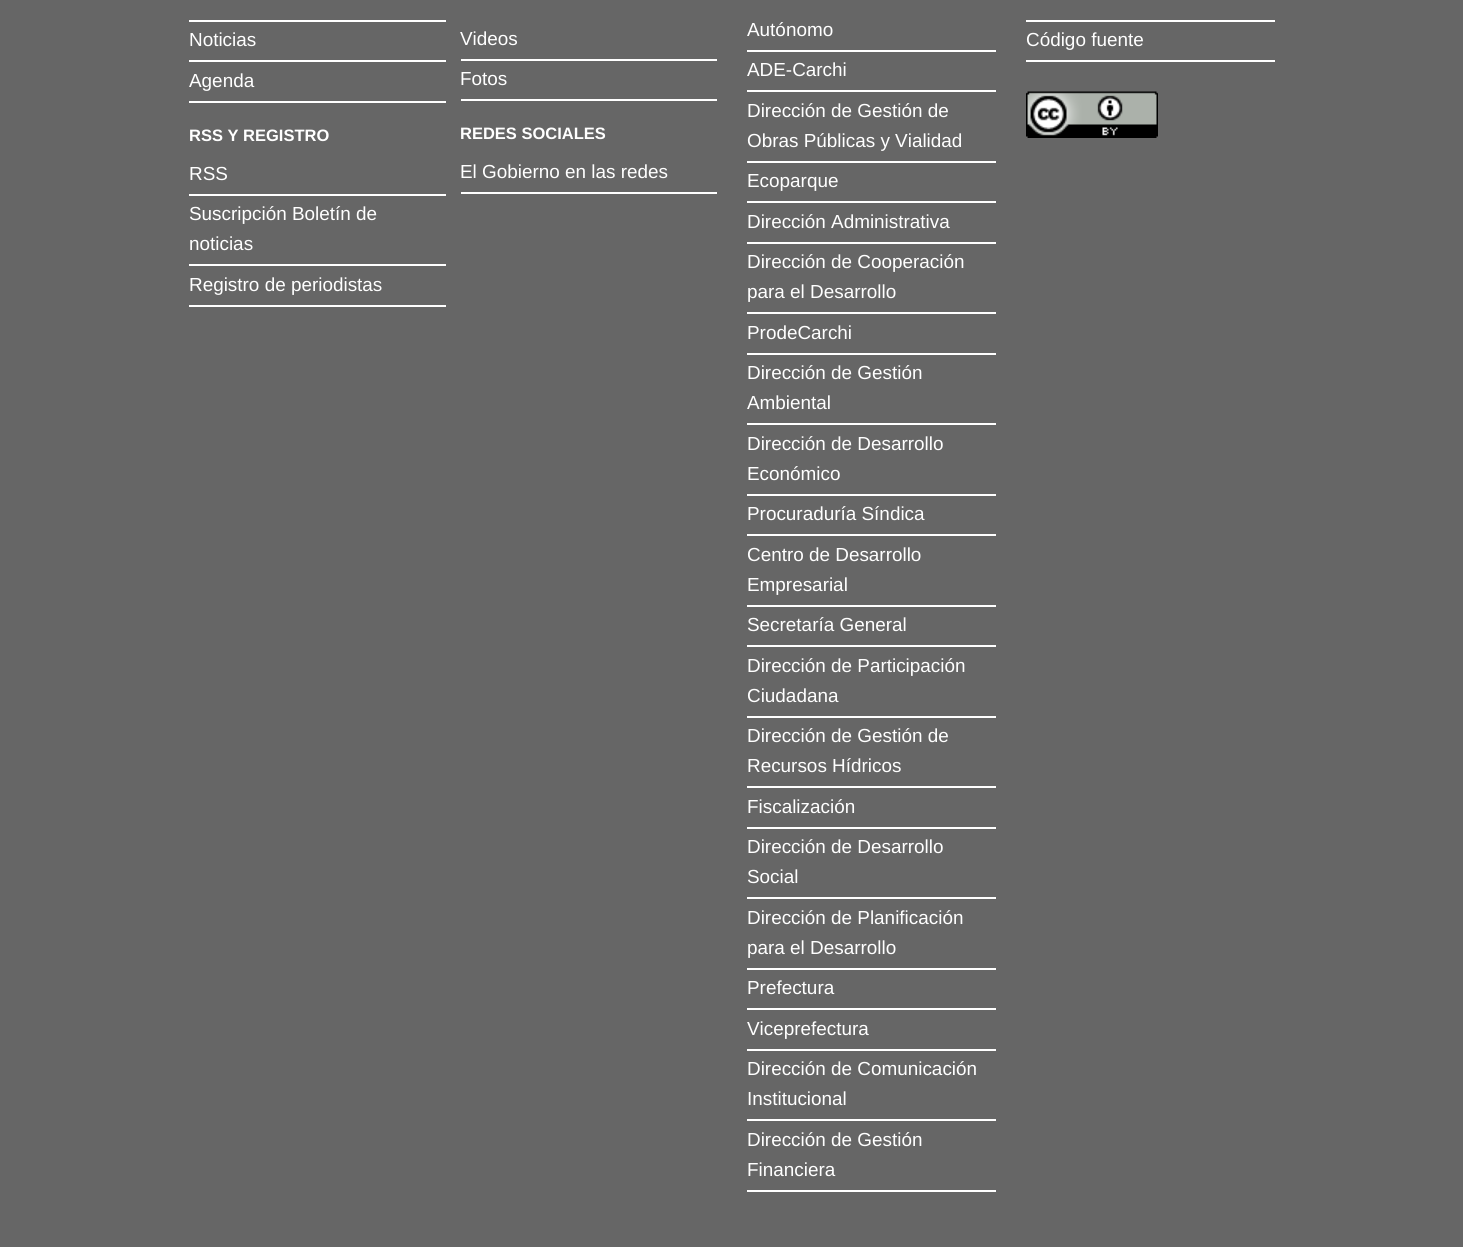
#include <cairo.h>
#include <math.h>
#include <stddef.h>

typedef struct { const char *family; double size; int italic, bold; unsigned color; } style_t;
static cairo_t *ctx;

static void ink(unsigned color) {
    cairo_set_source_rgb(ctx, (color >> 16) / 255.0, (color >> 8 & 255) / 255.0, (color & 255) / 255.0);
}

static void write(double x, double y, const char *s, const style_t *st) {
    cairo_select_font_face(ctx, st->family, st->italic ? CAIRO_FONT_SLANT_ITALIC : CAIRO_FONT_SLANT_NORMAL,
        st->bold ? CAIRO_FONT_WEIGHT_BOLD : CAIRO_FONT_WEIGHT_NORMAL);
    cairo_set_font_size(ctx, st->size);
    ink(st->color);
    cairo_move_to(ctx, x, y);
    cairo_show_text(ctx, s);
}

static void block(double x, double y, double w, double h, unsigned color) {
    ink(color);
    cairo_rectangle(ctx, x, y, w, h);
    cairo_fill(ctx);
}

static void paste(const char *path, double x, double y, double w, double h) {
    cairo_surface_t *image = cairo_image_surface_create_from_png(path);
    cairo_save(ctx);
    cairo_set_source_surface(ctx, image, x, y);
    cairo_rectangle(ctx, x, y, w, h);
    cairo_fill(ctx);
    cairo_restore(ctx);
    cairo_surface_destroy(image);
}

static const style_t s1 = {"Liberation Sans", 18.9, 0, 0, 0xffffff};
static const style_t s2 = {"Liberation Sans", 16.5, 0, 1, 0xffffff};

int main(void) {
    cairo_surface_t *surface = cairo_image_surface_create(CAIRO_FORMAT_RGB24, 1463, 1247);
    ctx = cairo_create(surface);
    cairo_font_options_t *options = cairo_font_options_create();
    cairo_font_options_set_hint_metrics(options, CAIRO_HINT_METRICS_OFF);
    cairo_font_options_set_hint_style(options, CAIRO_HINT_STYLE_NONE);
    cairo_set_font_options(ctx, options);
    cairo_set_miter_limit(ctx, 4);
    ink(0x666666);
    cairo_paint(ctx);
    block(189, 20, 257, 2, 0xffffff);
    block(189, 60, 257, 2, 0xffffff);
    write(189, 46, "Noticias", &s1);
    block(189, 101, 257, 2, 0xffffff);
    write(189, 87, "Agenda", &s1);
    write(189, 141, "RSS Y REGISTRO", &s2);
    block(189, 194, 257, 2, 0xffffff);
    write(189, 180, "RSS", &s1);
    block(189, 264, 257, 2, 0xffffff);
    write(189, 220, "Suscripción Boletín de", &s1);
    write(189, 250, "noticias", &s1);
    block(189, 305, 257, 2, 0xffffff);
    write(189, 291, "Registro de periodistas", &s1);
    block(461, 59, 256, 2, 0xffffff);
    write(460, 45, "Videos", &s1);
    block(461, 99, 256, 2, 0xffffff);
    write(460, 85, "Fotos", &s1);
    write(460, 139, "REDES SOCIALES", &s2);
    block(461, 192, 256, 2, 0xffffff);
    write(460, 178, "El Gobierno en las redes", &s1);
    block(747, 50, 249, 2, 0xffffff);
    write(747, 36, "Autónomo", &s1);
    block(747, 90, 249, 2, 0xffffff);
    write(747, 76, "ADE-Carchi", &s1);
    block(747, 161, 249, 2, 0xffffff);
    write(747, 117, "Dirección de Gestión de", &s1);
    write(747, 147, "Obras Públicas y Vialidad", &s1);
    block(747, 201, 249, 2, 0xffffff);
    write(747, 187, "Ecoparque", &s1);
    block(747, 242, 249, 2, 0xffffff);
    write(747, 228, "Dirección Administrativa", &s1);
    block(747, 312, 249, 2, 0xffffff);
    write(747, 268, "Dirección de Cooperación", &s1);
    write(747, 298, "para el Desarrollo", &s1);
    block(747, 353, 249, 2, 0xffffff);
    write(747, 339, "ProdeCarchi", &s1);
    block(747, 423, 249, 2, 0xffffff);
    write(747, 379, "Dirección de Gestión", &s1);
    write(747, 409, "Ambiental", &s1);
    block(747, 494, 249, 2, 0xffffff);
    write(747, 450, "Dirección de Desarrollo", &s1);
    write(747, 480, "Económico", &s1);
    block(747, 534, 249, 2, 0xffffff);
    write(747, 520, "Procuraduría Síndica", &s1);
    block(747, 605, 249, 2, 0xffffff);
    write(747, 561, "Centro de Desarrollo", &s1);
    write(747, 591, "Empresarial", &s1);
    block(747, 645, 249, 2, 0xffffff);
    write(747, 631, "Secretaría General", &s1);
    block(747, 716, 249, 2, 0xffffff);
    write(747, 672, "Dirección de Participación", &s1);
    write(747, 702, "Ciudadana", &s1);
    block(747, 786, 249, 2, 0xffffff);
    write(747, 742, "Dirección de Gestión de", &s1);
    write(747, 772, "Recursos Hídricos", &s1);
    block(747, 827, 249, 2, 0xffffff);
    write(747, 813, "Fiscalización", &s1);
    block(747, 897, 249, 2, 0xffffff);
    write(747, 853, "Dirección de Desarrollo", &s1);
    write(747, 883, "Social", &s1);
    block(747, 968, 249, 2, 0xffffff);
    write(747, 924, "Dirección de Planificación", &s1);
    write(747, 954, "para el Desarrollo", &s1);
    block(747, 1008, 249, 2, 0xffffff);
    write(747, 994, "Prefectura", &s1);
    block(747, 1049, 249, 2, 0xffffff);
    write(747, 1035, "Viceprefectura", &s1);
    block(747, 1119, 249, 2, 0xffffff);
    write(747, 1075, "Dirección de Comunicación", &s1);
    write(747, 1105, "Institucional", &s1);
    block(747, 1190, 249, 2, 0xffffff);
    write(747, 1146, "Dirección de Gestión", &s1);
    write(747, 1176, "Financiera", &s1);
    block(1026, 20, 249, 2, 0xffffff);
    block(1026, 60, 249, 2, 0xffffff);
    write(1026, 46, "Código fuente", &s1);
    paste("pic1.png", 1026, 91, 132, 47);
    cairo_surface_write_to_png(surface, "screenshot.png");
    cairo_font_options_destroy(options);
    cairo_destroy(ctx);
    cairo_surface_destroy(surface);
    return 0;
}
